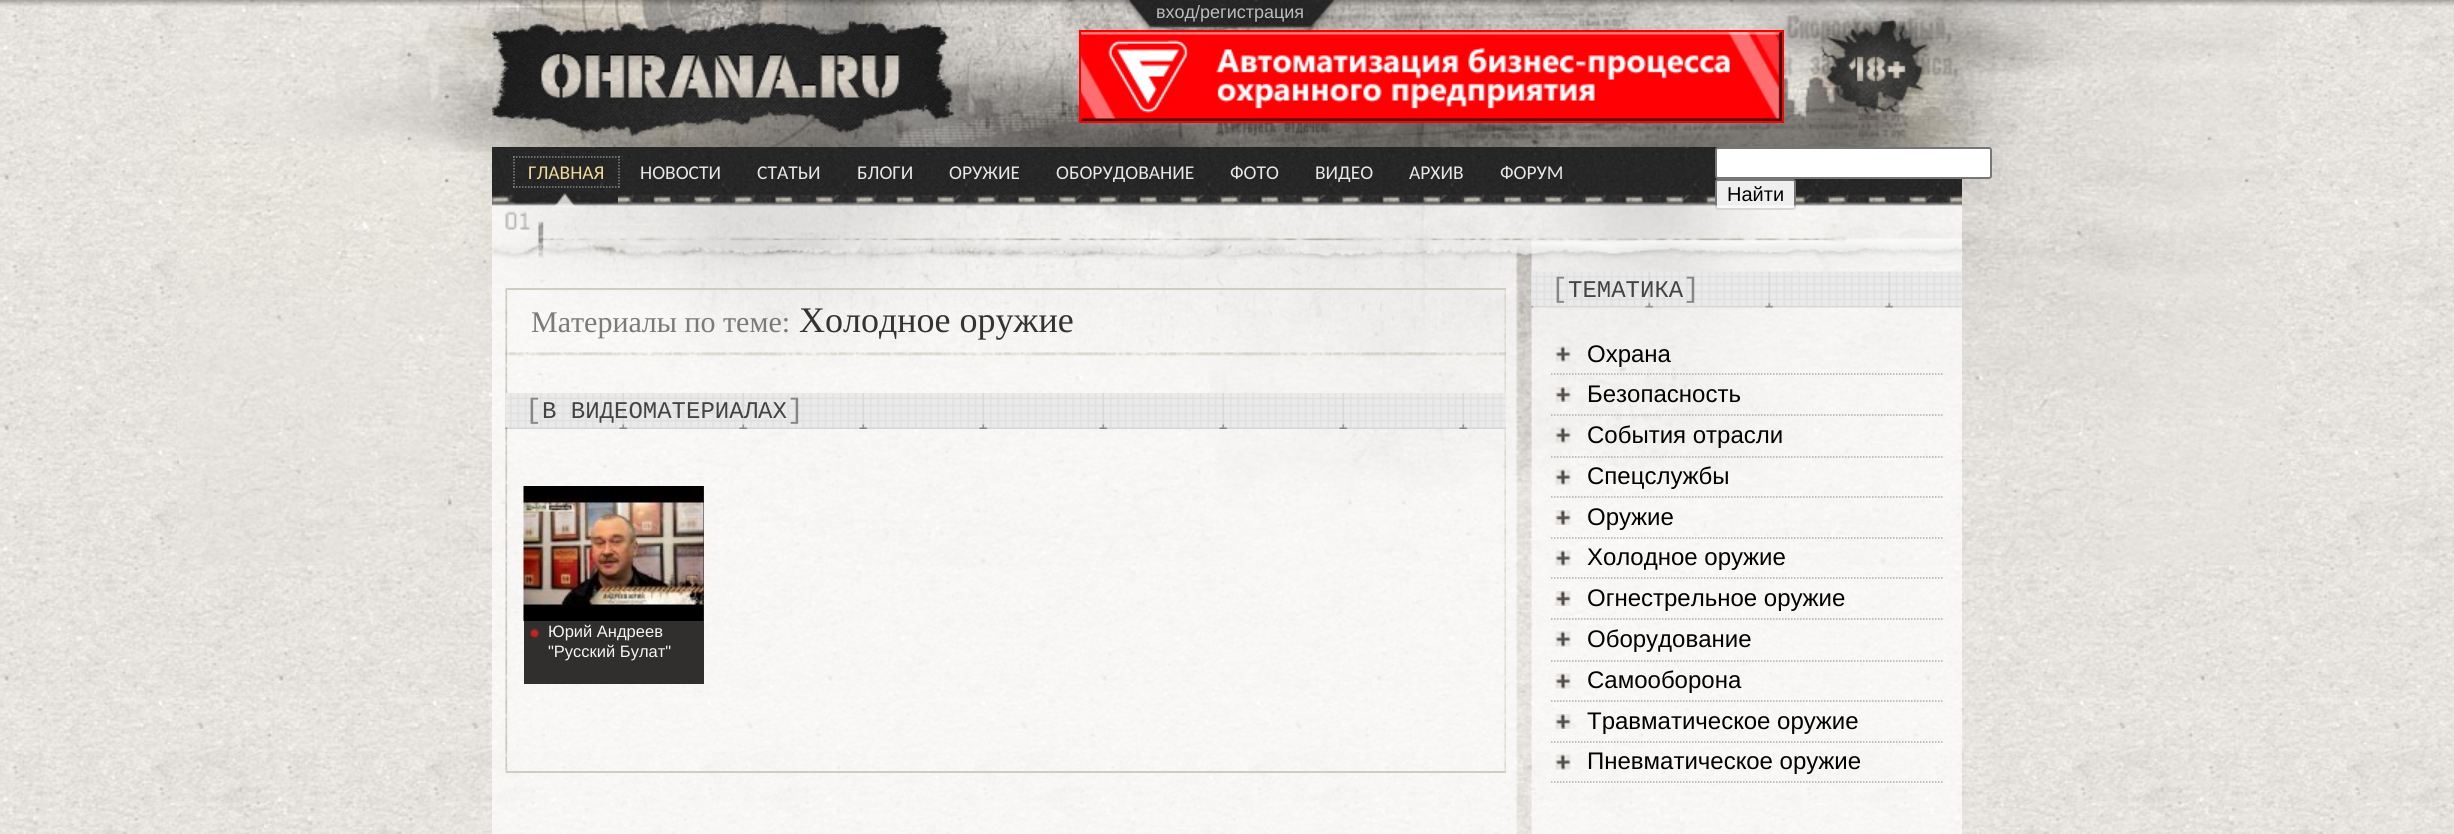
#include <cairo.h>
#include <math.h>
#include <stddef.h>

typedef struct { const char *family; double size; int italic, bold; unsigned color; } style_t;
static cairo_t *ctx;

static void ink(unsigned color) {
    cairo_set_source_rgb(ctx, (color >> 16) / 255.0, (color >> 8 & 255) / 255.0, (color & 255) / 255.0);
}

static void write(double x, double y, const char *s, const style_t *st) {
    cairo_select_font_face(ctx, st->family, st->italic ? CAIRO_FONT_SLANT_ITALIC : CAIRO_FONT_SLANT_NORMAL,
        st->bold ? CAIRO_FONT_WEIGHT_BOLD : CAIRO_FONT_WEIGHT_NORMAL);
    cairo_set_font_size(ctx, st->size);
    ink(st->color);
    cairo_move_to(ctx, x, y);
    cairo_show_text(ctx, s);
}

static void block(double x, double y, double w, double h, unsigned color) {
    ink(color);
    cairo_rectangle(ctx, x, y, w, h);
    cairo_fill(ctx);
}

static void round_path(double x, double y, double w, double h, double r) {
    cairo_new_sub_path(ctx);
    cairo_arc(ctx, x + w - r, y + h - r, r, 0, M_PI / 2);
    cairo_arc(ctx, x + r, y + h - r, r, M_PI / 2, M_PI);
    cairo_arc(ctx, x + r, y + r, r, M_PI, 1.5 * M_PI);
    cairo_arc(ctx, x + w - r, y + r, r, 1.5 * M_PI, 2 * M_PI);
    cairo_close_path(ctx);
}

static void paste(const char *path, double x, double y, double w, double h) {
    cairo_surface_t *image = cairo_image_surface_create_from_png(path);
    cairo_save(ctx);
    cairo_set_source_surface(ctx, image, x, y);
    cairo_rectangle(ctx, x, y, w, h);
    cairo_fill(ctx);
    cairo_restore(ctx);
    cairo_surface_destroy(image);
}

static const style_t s1 = {"Liberation Sans", 18, 0, 0, 0xbdbcbc};
static const style_t s2 = {"Carlito", 19.5, 0, 0, 0xedda9b};
static const style_t s3 = {"Carlito", 19.5, 0, 0, 0xe8e8e8};
static const style_t s4 = {"Liberation Sans", 20, 0, 0, 0x000000};
static const style_t s5 = {"Liberation Serif", 30, 0, 0, 0x7a7a7a};
static const style_t s6 = {"Liberation Serif", 36, 0, 0, 0x333333};
static const style_t s7 = {"Liberation Mono", 28, 0, 0, 0x868686};
static const style_t s8 = {"Liberation Mono", 24, 0, 0, 0x434343};
static const style_t s9 = {"Liberation Sans", 16.5, 0, 0, 0xf5f5f5};
static const style_t s10 = {"Liberation Sans", 24, 0, 0, 0x000000};

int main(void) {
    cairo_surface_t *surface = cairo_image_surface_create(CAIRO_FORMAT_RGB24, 2454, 834);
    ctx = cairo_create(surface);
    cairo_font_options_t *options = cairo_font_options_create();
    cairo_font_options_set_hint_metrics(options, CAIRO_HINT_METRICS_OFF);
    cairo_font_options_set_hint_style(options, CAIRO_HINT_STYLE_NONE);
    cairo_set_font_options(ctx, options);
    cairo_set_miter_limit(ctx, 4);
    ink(0xffffff);
    cairo_paint(ctx);
    paste("pic1.png", 0, 0, 2454, 834);
    paste("pic2.png", 177, 0, 2100, 566);
    paste("pic3.png", 0, 0, 2454, 6);
    paste("pic6.png", 1081, 32, 701, 89);
    cairo_rectangle(ctx, 1080, 31, 703, 91);
    ink(0xff0000);
    cairo_stroke(ctx);
    paste("pic4.png", 1125, 0, 213, 33);
    write(1156, 18, "вход/регистрация", &s1);
    paste("pic5.png", 492, 19, 462, 118);
    paste("pic7.png", 492, 147, 1470, 59);
    cairo_new_path(ctx);
    cairo_move_to(ctx, 513, 157);
    cairo_line_to(ctx, 619.5, 157);
    ink(0x858585);
    cairo_set_line_width(ctx, 1.5);
    cairo_set_dash(ctx, (double[]){1.5, 1.5}, 2, 0);
    cairo_stroke(ctx);
    cairo_new_path(ctx);
    cairo_move_to(ctx, 619, 156);
    cairo_line_to(ctx, 619, 187.5);
    cairo_stroke(ctx);
    cairo_new_path(ctx);
    cairo_move_to(ctx, 513, 187);
    cairo_line_to(ctx, 619.5, 187);
    cairo_stroke(ctx);
    cairo_new_path(ctx);
    cairo_move_to(ctx, 514, 156);
    cairo_line_to(ctx, 514, 187.5);
    cairo_stroke(ctx);
    write(528, 179, "ГЛАВНАЯ", &s2);
    paste("pic8.png", 514, 193, 104, 14);
    write(640, 179, "НОВОСТИ", &s3);
    write(757, 179, "СТАТЬИ", &s3);
    write(857, 179, "БЛОГИ", &s3);
    write(949, 179, "ОРУЖИЕ", &s3);
    write(1056, 179, "ОБОРУДОВАНИЕ", &s3);
    write(1230, 179, "ФОТО", &s3);
    write(1315, 179, "ВИДЕО", &s3);
    write(1409, 179, "АРХИВ", &s3);
    write(1500, 179, "ФОРУМ", &s3);
    ink(0xffffff);
    round_path(1716, 148, 275, 30, 2);
    cairo_fill_preserve(ctx);
    ink(0x767676);
    cairo_set_line_width(ctx, 2);
    cairo_set_dash(ctx, NULL, 0, 0);
    cairo_stroke(ctx);
    ink(0xefefef);
    round_path(1716, 180, 79, 29, 2);
    cairo_fill_preserve(ctx);
    ink(0x767676);
    cairo_stroke(ctx);
    write(1727, 201, "Найти", &s4);
    paste("pic10.png", 492, 258, 1470, 576);
    paste("pic11.png", 492, 238, 1470, 20);
    paste("pic9.png", 492, 205, 1470, 55);
    paste("pic12.png", 505, 288, 1001, 485);
    block(506, 288, 1000, 2, 0xd0ccc0);
    block(506, 771, 1000, 2, 0xd0ccc0);
    paste("pic13.png", 505, 352, 1001, 4);
    write(531, 332, "Материалы по теме:", &s5);
    write(799, 332, "Холодное оружие", &s6);
    paste("pic14.png", 505, 393, 1001, 36);
    write(525, 418, "[", &s7);
    write(542, 418, "В ВИДЕОМАТЕРИАЛАХ", &s8);
    write(787, 418, "]", &s7);
    block(524, 486, 180, 198, 0x302f2e);
    paste("pic15.png", 523, 486, 181, 135);
    paste("pic16.png", 529, 628, 10, 10);
    write(548, 637, "Юрий Андреев", &s9);
    write(548, 657, "\"Русский Булат\"", &s9);
    paste("pic17.png", 1531, 271, 431, 37);
    write(1551, 297, "[", &s7);
    write(1568, 297, "ТЕМАТИКА", &s8);
    write(1683, 297, "]", &s7);
    cairo_new_path(ctx);
    cairo_move_to(ctx, 1551, 374);
    cairo_line_to(ctx, 1942.5, 374);
    ink(0xadacab);
    cairo_set_line_width(ctx, 1.5);
    cairo_set_dash(ctx, (double[]){1.5, 1.5}, 2, 0);
    cairo_stroke(ctx);
    paste("pic18.png", 1555, 346, 16, 16);
    write(1587, 362, "Охрана", &s10);
    cairo_new_path(ctx);
    cairo_move_to(ctx, 1551, 415);
    cairo_line_to(ctx, 1942.5, 415);
    ink(0xadacab);
    cairo_stroke(ctx);
    paste("pic19.png", 1555, 387, 16, 15);
    write(1587, 402, "Безопасность", &s10);
    cairo_new_path(ctx);
    cairo_move_to(ctx, 1551, 457);
    cairo_line_to(ctx, 1942.5, 457);
    ink(0xadacab);
    cairo_stroke(ctx);
    paste("pic20.png", 1555, 427, 16, 16);
    write(1587, 443, "События отрасли", &s10);
    cairo_new_path(ctx);
    cairo_move_to(ctx, 1551, 497);
    cairo_line_to(ctx, 1942.5, 497);
    ink(0xadacab);
    cairo_stroke(ctx);
    paste("pic21.png", 1555, 469, 16, 16);
    write(1587, 484, "Спецслужбы", &s10);
    cairo_new_path(ctx);
    cairo_move_to(ctx, 1551, 538);
    cairo_line_to(ctx, 1942.5, 538);
    ink(0xadacab);
    cairo_stroke(ctx);
    paste("pic22.png", 1555, 510, 16, 15);
    write(1587, 525, "Оружие", &s10);
    cairo_new_path(ctx);
    cairo_move_to(ctx, 1551, 578);
    cairo_line_to(ctx, 1942.5, 578);
    ink(0xadacab);
    cairo_stroke(ctx);
    paste("pic23.png", 1555, 550, 16, 16);
    write(1587, 565, "Холодное оружие", &s10);
    cairo_new_path(ctx);
    cairo_move_to(ctx, 1551, 619);
    cairo_line_to(ctx, 1942.5, 619);
    ink(0xadacab);
    cairo_stroke(ctx);
    paste("pic24.png", 1555, 591, 16, 15);
    write(1587, 606, "Огнестрельное оружие", &s10);
    cairo_new_path(ctx);
    cairo_move_to(ctx, 1551, 661);
    cairo_line_to(ctx, 1942.5, 661);
    ink(0xadacab);
    cairo_stroke(ctx);
    paste("pic25.png", 1555, 631, 16, 16);
    write(1587, 647, "Оборудование", &s10);
    cairo_new_path(ctx);
    cairo_move_to(ctx, 1551, 701);
    cairo_line_to(ctx, 1942.5, 701);
    ink(0xadacab);
    cairo_stroke(ctx);
    paste("pic26.png", 1555, 673, 16, 16);
    write(1587, 688, "Самооборона", &s10);
    cairo_new_path(ctx);
    cairo_move_to(ctx, 1551, 742);
    cairo_line_to(ctx, 1942.5, 742);
    ink(0xadacab);
    cairo_stroke(ctx);
    paste("pic27.png", 1555, 714, 16, 15);
    write(1587, 729, "Травматическое оружие", &s10);
    cairo_new_path(ctx);
    cairo_move_to(ctx, 1551, 782);
    cairo_line_to(ctx, 1942.5, 782);
    ink(0xadacab);
    cairo_stroke(ctx);
    paste("pic28.png", 1555, 754, 16, 16);
    write(1587, 769, "Пневматическое оружие", &s10);
    cairo_surface_write_to_png(surface, "screenshot.png");
    cairo_font_options_destroy(options);
    cairo_destroy(ctx);
    cairo_surface_destroy(surface);
    return 0;
}
